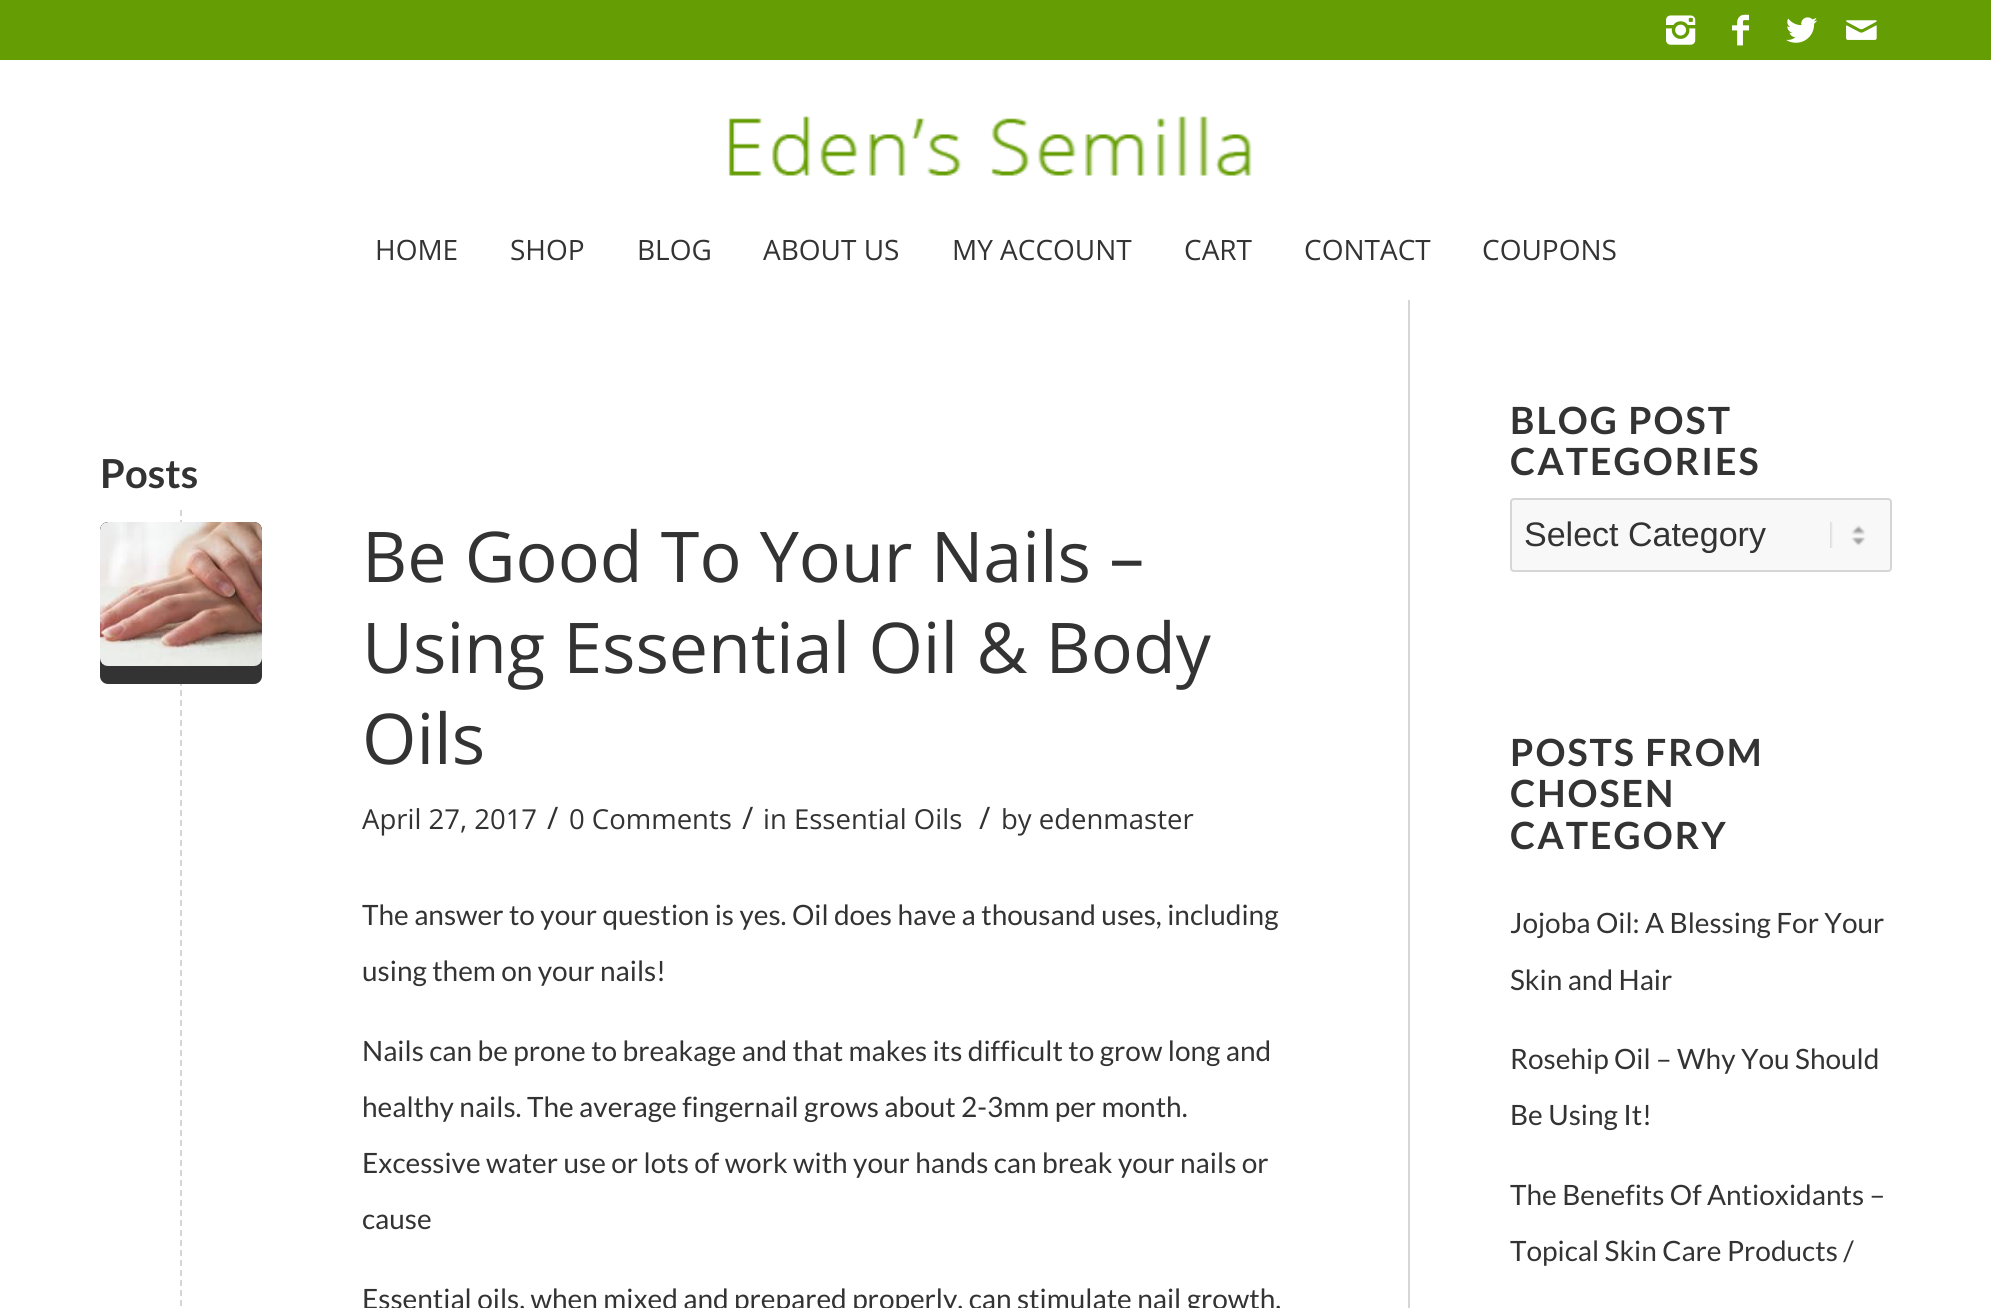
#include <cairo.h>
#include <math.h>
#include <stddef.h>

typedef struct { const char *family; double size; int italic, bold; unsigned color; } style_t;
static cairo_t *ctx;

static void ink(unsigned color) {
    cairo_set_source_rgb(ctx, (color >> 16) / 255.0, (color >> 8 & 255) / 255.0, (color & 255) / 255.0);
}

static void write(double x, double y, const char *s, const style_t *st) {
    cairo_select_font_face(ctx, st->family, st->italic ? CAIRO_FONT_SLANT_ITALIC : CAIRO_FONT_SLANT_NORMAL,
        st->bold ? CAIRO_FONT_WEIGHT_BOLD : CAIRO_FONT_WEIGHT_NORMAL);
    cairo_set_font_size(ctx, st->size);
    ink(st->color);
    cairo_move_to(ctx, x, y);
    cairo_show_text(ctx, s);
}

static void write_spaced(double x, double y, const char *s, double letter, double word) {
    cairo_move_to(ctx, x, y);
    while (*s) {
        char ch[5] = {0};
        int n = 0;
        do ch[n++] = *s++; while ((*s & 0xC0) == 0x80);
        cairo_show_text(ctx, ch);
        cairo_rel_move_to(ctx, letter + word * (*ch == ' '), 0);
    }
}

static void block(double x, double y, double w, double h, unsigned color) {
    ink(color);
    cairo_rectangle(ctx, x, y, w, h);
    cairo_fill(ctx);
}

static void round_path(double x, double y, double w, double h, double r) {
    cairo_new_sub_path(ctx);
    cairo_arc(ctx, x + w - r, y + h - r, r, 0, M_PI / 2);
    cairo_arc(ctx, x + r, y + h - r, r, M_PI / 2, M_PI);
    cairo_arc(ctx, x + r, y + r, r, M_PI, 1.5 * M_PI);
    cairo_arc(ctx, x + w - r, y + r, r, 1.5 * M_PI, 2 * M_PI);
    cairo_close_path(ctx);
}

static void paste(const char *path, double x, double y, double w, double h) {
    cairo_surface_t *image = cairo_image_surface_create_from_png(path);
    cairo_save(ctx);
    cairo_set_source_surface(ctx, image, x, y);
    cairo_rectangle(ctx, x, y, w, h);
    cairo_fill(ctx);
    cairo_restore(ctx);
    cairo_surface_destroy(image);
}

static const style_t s1 = {"Open Sans", 28, 0, 0, 0x333333};
static const style_t s2 = {"Lato", 40, 0, 1, 0x333333};
static const style_t s3 = {"Open Sans", 70, 0, 0, 0x333333};
static const style_t s4 = {"Open Sans", 27.5, 0, 0, 0x333333};
static const style_t s5 = {"Open Sans", 31, 0, 0, 0x333333};
static const style_t s6 = {"Lato", 28, 0, 0, 0x333333};
static const style_t s7 = {"Liberation Sans", 34, 0, 0, 0x333333};

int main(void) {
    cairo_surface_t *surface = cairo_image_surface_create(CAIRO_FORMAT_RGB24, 1991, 1308);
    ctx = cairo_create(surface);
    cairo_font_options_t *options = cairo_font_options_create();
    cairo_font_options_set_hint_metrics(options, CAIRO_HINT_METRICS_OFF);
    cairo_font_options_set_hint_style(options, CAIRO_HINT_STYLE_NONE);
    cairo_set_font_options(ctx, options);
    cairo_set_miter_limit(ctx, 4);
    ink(0xffffff);
    cairo_paint(ctx);
    block(0, 0, 1991, 60, 0x659d04);
    paste("pic1.png", 1666, 15, 30, 30);
    paste("pic2.png", 1732, 14, 17, 32);
    paste("pic3.png", 1786, 17, 32, 26);
    paste("pic4.png", 1846, 20, 31, 20);
    paste("pic5.png", 728, 116, 524, 60);
    write(375, 260, "HOME", &s1);
    write(510, 260, "SHOP", &s1);
    write(637, 260, "BLOG", &s1);
    write(763, 260, "ABOUT US", &s1);
    write(952, 260, "MY ACCOUNT", &s1);
    write(1184, 260, "CART", &s1);
    write(1304, 260, "CONTACT", &s1);
    write(1482, 260, "COUPONS", &s1);
    block(1408, 300, 2, 1008, 0xd6d6d6);
    write(100, 488, "Posts", &s2);
    cairo_new_path(ctx);
    cairo_move_to(ctx, 181, 510);
    cairo_line_to(ctx, 181, 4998);
    ink(0xd6d6d6);
    cairo_set_dash(ctx, (double[]){6, 4}, 2, 0);
    cairo_stroke(ctx);
    ink(0x333333);
    round_path(100, 522, 162, 162, 8);
    cairo_fill(ctx);
    paste("pic6.png", 100, 522, 162, 144);
    write(362, 582, "Be Good To Your Nails –", &s3);
    write(362, 673, "Using Essential Oil & Body", &s3);
    write(362, 764, "Oils", &s3);
    write(362, 829, "April 27, 2017", &s4);
    write(547, 829, "/", &s5);
    write(569, 829, "0 Comments", &s4);
    write(742, 829, "/", &s5);
    write(763, 829, "in Essential Oils", &s4);
    write(979, 829, "/", &s5);
    write(1001, 829, "by edenmaster", &s4);
    write(362, 925, "The answer to your question is yes. Oil does have a thousand uses, including", &s6);
    write(362, 981, "using them on your nails!", &s6);
    write(362, 1061, "Nails can be prone to breakage and that makes its difficult to grow long and", &s6);
    write(362, 1117, "healthy nails. The average fingernail grows about 2-3mm per month.", &s6);
    write(362, 1173, "Excessive water use or lots of work with your hands can break your nails or", &s6);
    write(362, 1229, "cause", &s6);
    write(362, 1309, "Essential oils, when mixed and prepared properly, can stimulate nail growth.", &s6);
    cairo_select_font_face(ctx, "Lato", CAIRO_FONT_SLANT_NORMAL, CAIRO_FONT_WEIGHT_BOLD);
    cairo_set_font_size(ctx, 37.5);
    write_spaced(1510, 434, "BLOG POST", 2, 0);
    write_spaced(1510, 475, "CATEGORIES", 2, 0);
    ink(0xf8f8f8);
    round_path(1510, 498, 382, 74, 4);
    cairo_fill(ctx);
    paste("pic7.png", 1830, 522, 35, 26);
    round_path(1511, 499, 380, 72, 3);
    ink(0xd6d6d6);
    cairo_set_dash(ctx, NULL, 0, 0);
    cairo_stroke(ctx);
    write(1524, 546, "Select Category", &s7);
    cairo_select_font_face(ctx, "Lato", CAIRO_FONT_SLANT_NORMAL, CAIRO_FONT_WEIGHT_BOLD);
    cairo_set_font_size(ctx, 37.5);
    write_spaced(1510, 766, "POSTS FROM", 2, 0);
    write_spaced(1510, 807, "CHOSEN", 2, 0);
    write_spaced(1510, 849, "CATEGORY", 2, 0);
    write(1510, 933, "Jojoba Oil: A Blessing For Your", &s6);
    write(1510, 990, "Skin and Hair", &s6);
    write(1510, 1069, "Rosehip Oil – Why You Should", &s6);
    write(1510, 1125, "Be Using It!", &s6);
    write(1510, 1205, "The Benefits Of Antioxidants –", &s6);
    write(1510, 1261, "Topical Skin Care Products /", &s6);
    cairo_surface_write_to_png(surface, "screenshot.png");
    cairo_font_options_destroy(options);
    cairo_destroy(ctx);
    cairo_surface_destroy(surface);
    return 0;
}
